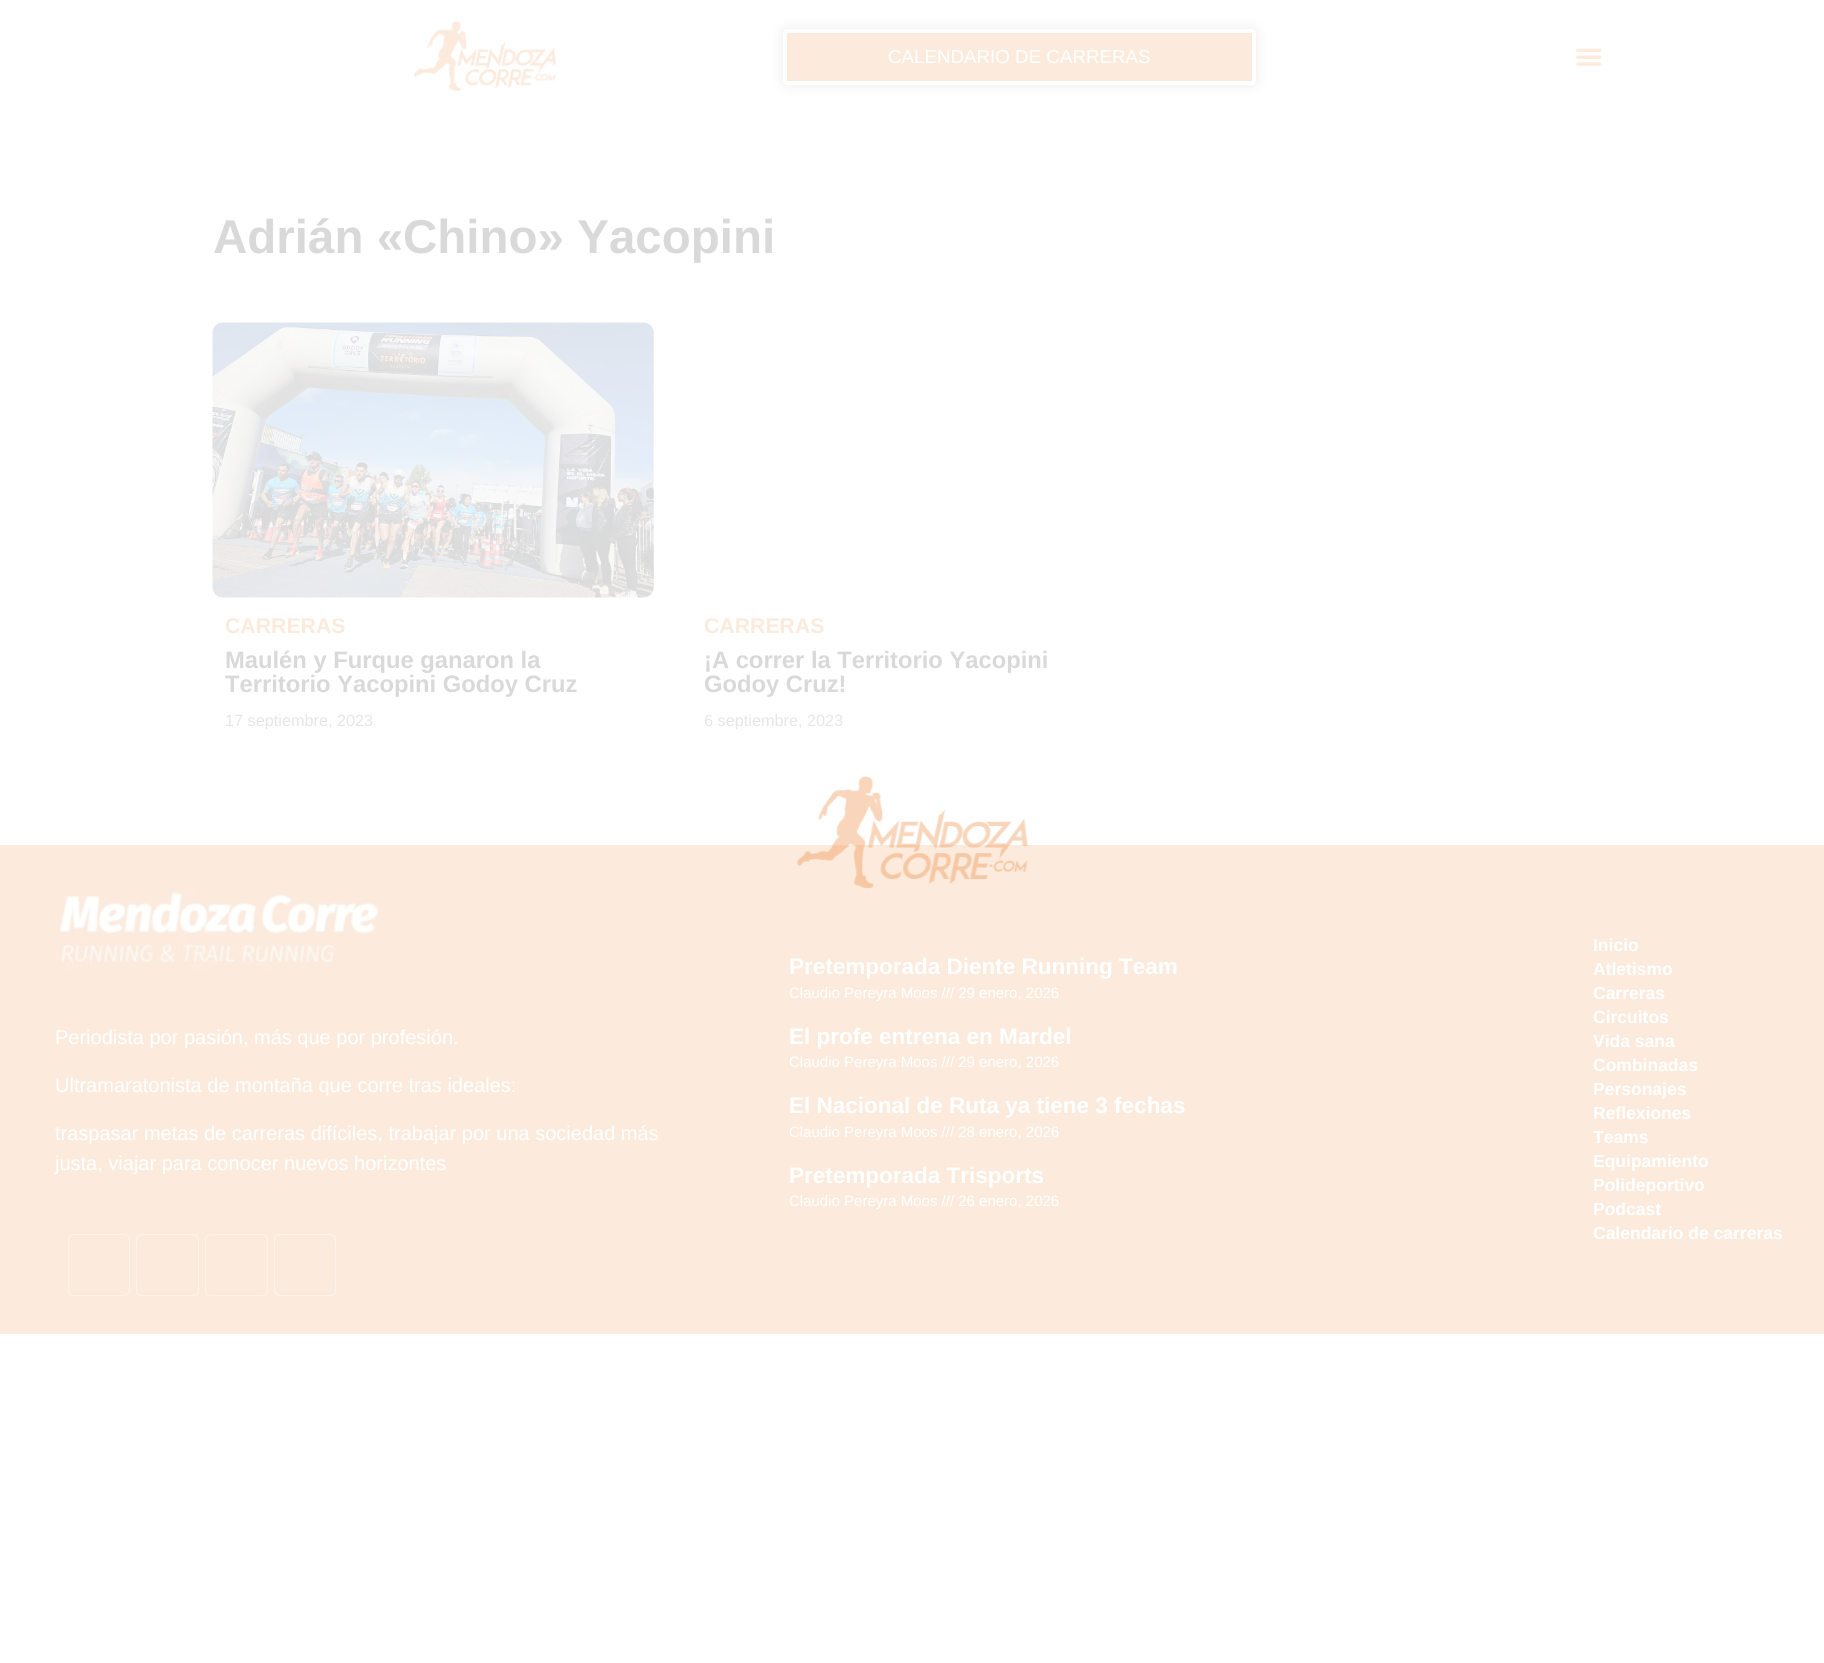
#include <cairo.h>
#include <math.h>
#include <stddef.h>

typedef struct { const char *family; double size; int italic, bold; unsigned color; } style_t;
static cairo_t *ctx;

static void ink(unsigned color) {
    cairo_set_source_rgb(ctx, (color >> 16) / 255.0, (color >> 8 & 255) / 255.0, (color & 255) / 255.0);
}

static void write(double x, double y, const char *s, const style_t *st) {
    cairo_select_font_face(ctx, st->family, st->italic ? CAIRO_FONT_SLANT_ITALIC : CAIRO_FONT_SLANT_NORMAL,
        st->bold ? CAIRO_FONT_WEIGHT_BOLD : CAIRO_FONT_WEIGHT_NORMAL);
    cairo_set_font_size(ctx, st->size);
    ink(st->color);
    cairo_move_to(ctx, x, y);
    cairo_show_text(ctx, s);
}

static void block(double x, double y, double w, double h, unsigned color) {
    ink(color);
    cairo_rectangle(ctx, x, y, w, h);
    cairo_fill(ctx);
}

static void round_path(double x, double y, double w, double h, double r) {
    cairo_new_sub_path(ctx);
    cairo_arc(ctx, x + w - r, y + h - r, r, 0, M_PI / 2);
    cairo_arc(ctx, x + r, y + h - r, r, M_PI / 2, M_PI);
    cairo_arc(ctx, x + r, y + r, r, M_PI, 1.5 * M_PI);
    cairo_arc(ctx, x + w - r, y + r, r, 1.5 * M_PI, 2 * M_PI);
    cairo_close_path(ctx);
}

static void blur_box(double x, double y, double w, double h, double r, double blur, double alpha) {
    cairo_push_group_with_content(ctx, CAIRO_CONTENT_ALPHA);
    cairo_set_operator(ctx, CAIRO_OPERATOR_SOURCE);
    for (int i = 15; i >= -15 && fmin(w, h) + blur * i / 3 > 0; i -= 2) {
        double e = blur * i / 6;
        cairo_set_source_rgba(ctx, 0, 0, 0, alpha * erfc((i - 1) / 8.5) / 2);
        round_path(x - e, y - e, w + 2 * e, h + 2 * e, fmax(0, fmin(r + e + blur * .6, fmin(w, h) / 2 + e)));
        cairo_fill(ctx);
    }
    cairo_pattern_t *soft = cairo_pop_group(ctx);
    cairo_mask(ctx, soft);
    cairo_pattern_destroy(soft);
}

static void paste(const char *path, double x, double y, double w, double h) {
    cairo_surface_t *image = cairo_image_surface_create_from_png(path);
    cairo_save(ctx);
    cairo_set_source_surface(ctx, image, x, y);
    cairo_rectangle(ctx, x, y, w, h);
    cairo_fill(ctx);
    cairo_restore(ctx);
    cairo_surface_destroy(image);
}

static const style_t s1 = {"Liberation Sans", 18.75, 0, 0, 0xffffff};
static const style_t s2 = {"Liberation Sans", 47.5, 0, 1, 0xd9d9d9};
static const style_t s3 = {"Liberation Sans", 21.25, 0, 1, 0xfcebdd};
static const style_t s4 = {"Liberation Sans", 23.75, 0, 1, 0xd9d9d9};
static const style_t s5 = {"Liberation Sans", 16.25, 0, 0, 0xe5e6e7};
static const style_t s6 = {"Liberation Sans", 20, 0, 0, 0xffffff};
static const style_t s7 = {"Liberation Sans", 22.5, 0, 1, 0xffffff};
static const style_t s8 = {"Liberation Sans", 15, 0, 0, 0xffffff};
static const style_t s9 = {"Liberation Sans", 17.5, 0, 1, 0xffffff};

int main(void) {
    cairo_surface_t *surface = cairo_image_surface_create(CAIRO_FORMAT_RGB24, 1824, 1663);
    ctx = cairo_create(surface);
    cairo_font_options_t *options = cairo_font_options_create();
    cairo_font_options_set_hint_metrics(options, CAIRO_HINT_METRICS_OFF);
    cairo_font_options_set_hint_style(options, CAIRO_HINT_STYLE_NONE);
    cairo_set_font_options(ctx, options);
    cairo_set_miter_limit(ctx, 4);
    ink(0xffffff);
    cairo_paint(ctx);
    paste("pic1.png", 413, 21, 144, 71);
    ink(0xd9d9d9);
    blur_box(783, 29, 473, 56, 4, 6, 0.5);
    ink(0xfcebdd);
    round_path(785, 31, 469, 52, 2);
    cairo_fill_preserve(ctx);
    ink(0xffffff);
    cairo_set_line_width(ctx, 4);
    cairo_stroke(ctx);
    write(888, 63, "CALENDARIO DE CARRERAS", &s1);
    paste("pic2.png", 1576, 48, 26, 18);
    write(213, 253, "Adrián «Chino» Yacopini", &s2);
    paste("pic3.png", 212, 322, 442, 276);
    write(225, 633, "CARRERAS", &s3);
    write(225, 668, "Maulén y Furque ganaron la", &s4);
    write(225, 692, "Territorio Yacopini Godoy Cruz", &s4);
    write(225, 726, "17 septiembre, 2023", &s5);
    write(704, 633, "CARRERAS", &s3);
    write(704, 668, "¡A correr la Territorio Yacopini", &s4);
    write(704, 692, "Godoy Cruz!", &s4);
    write(704, 726, "6 septiembre, 2023", &s5);
    block(0, 845, 1824, 489, 0xfcebdd);
    paste("pic4.png", 797, 776, 231, 113);
    paste("pic5.png", 55, 890, 330, 81);
    write(55, 1044, "Periodista por pasión, más que por profesión.", &s6);
    write(55, 1092, "Ultramaratonista de montaña que corre tras ideales:", &s6);
    write(55, 1140, "traspasar metas de carreras difíciles, trabajar por una sociedad más", &s6);
    write(55, 1170, "justa, viajar para conocer nuevos horizontes", &s6);
    round_path(68.5, 1234.5, 61, 61, 5.5);
    ink(0xfdf3eb);
    cairo_set_line_width(ctx, 1);
    cairo_stroke(ctx);
    round_path(136.5, 1234.5, 62, 61, 5.5);
    cairo_stroke(ctx);
    round_path(205.5, 1234.5, 62, 61, 5.5);
    cairo_stroke(ctx);
    round_path(274.5, 1234.5, 61, 61, 5.5);
    cairo_stroke(ctx);
    write(789, 974, "Pretemporada Diente Running Team", &s7);
    write(789, 998, "Claudio Pereyra Moos /// 29 enero, 2026", &s8);
    write(789, 1044, "El profe entrena en Mardel", &s7);
    write(789, 1067, "Claudio Pereyra Moos /// 29 enero, 2026", &s8);
    write(789, 1113, "El Nacional de Ruta ya tiene 3 fechas", &s7);
    write(789, 1137, "Claudio Pereyra Moos /// 28 enero, 2026", &s8);
    write(789, 1183, "Pretemporada Trisports", &s7);
    write(789, 1206, "Claudio Pereyra Moos /// 26 enero, 2026", &s8);
    write(1593, 951, "Inicio", &s9);
    write(1593, 975, "Atletismo", &s9);
    write(1593, 999, "Carreras", &s9);
    write(1593, 1023, "Circuitos", &s9);
    write(1593, 1047, "Vida sana", &s9);
    write(1593, 1071, "Combinadas", &s9);
    write(1593, 1095, "Personajes", &s9);
    write(1593, 1119, "Reflexiones", &s9);
    write(1593, 1143, "Teams", &s9);
    write(1593, 1167, "Equipamiento", &s9);
    write(1593, 1191, "Polideportivo", &s9);
    write(1593, 1215, "Podcast", &s9);
    write(1593, 1239, "Calendario de carreras", &s9);
    cairo_surface_write_to_png(surface, "screenshot.png");
    cairo_font_options_destroy(options);
    cairo_destroy(ctx);
    cairo_surface_destroy(surface);
    return 0;
}
